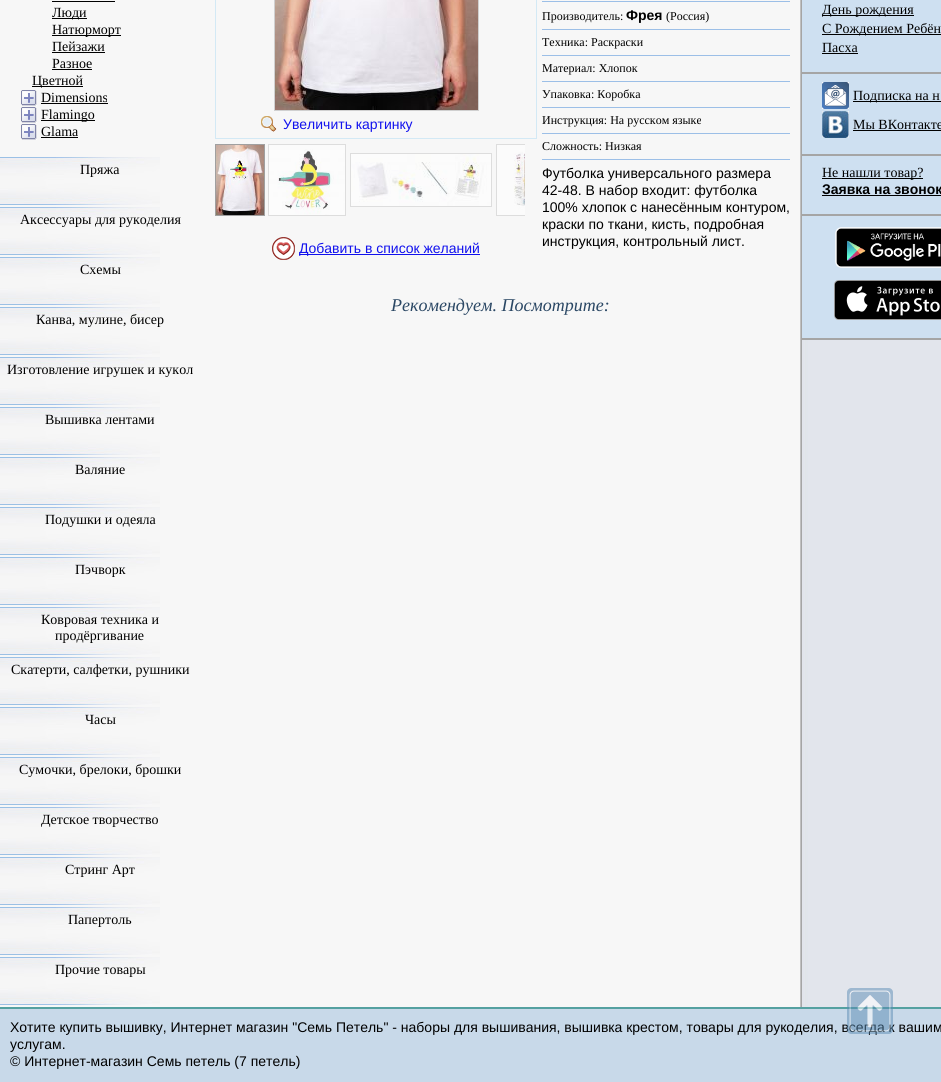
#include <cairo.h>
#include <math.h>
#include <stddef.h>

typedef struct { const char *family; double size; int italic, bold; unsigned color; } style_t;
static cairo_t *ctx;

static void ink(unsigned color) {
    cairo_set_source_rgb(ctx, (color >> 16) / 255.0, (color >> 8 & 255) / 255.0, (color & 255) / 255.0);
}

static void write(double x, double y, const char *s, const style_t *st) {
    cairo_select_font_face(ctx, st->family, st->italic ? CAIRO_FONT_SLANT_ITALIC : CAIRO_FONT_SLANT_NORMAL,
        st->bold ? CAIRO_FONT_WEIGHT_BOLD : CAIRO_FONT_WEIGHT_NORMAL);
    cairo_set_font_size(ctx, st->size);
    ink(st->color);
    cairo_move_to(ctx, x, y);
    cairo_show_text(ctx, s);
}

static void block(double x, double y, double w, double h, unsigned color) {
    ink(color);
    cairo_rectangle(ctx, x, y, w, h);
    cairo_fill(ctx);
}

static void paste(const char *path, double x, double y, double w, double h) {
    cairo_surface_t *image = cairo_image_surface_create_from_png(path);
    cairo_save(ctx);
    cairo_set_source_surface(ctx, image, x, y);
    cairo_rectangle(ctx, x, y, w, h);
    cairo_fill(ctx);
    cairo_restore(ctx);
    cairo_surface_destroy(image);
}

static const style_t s1 = {"Liberation Serif", 14, 0, 0, 0x000000};
static const style_t s2 = {"Liberation Sans", 14, 0, 0, 0x1111ee};
static const style_t s3 = {"Liberation Serif", 12, 0, 0, 0x000000};
static const style_t s4 = {"Liberation Sans", 14, 0, 0, 0x000000};
static const style_t s5 = {"Liberation Sans", 14, 0, 1, 0x000000};
static const style_t s6 = {"Liberation Serif", 18, 1, 0, 0x2a4764};

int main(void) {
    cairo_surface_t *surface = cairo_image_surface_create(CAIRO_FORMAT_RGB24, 941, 1082);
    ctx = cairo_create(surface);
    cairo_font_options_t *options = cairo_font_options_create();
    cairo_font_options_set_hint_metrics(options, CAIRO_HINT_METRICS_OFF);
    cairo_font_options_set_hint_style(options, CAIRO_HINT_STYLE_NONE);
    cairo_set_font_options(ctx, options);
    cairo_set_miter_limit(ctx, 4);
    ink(0xf7f7f7);
    cairo_paint(ctx);
    paste("pic1.png", 800, 0, 141, 1007);
    block(52, 1, 63, 1, 0x000000);
    block(52, 18, 35, 1, 0x000000);
    write(52, 17, "Люди", &s1);
    block(52, 35, 69, 1, 0x000000);
    write(52, 34, "Натюрморт", &s1);
    write(52, 51, "Пейзажи", &s1);
    block(52, 52, 53, 1, 0x000000);
    write(52, 68, "Разное", &s1);
    block(52, 69, 40, 1, 0x000000);
    block(32, 86, 51, 1, 0x000000);
    write(32, 85, "Цветной", &s1);
    paste("pic2.png", 21, 90, 16, 16);
    write(41, 102, "Dimensions", &s1);
    block(41, 103, 67, 1, 0x000000);
    paste("pic2.png", 21, 107, 16, 16);
    block(41, 120, 54, 1, 0x000000);
    write(41, 119, "Flamingo", &s1);
    paste("pic2.png", 21, 124, 16, 16);
    write(41, 136, "Glama", &s1);
    block(41, 137, 37, 1, 0x000000);
    paste("pic3.png", 0, 157, 160, 48);
    write(80, 174, "Пряжа", &s1);
    paste("pic3.png", 0, 207, 160, 48);
    write(20, 224, "Аксессуары для рукоделия", &s1);
    paste("pic3.png", 0, 257, 160, 48);
    write(80, 274, "Схемы", &s1);
    paste("pic3.png", 0, 307, 160, 48);
    write(36, 324, "Канва, мулине, бисер", &s1);
    paste("pic3.png", 0, 357, 160, 48);
    write(7, 374, "Изготовление игрушек и кукол", &s1);
    paste("pic3.png", 0, 407, 160, 48);
    write(45, 424, "Вышивка лентами", &s1);
    paste("pic3.png", 0, 457, 160, 48);
    write(75, 474, "Валяние", &s1);
    paste("pic3.png", 0, 507, 160, 48);
    write(45, 524, "Подушки и одеяла", &s1);
    paste("pic3.png", 0, 557, 160, 48);
    write(75, 574, "Пэчворк", &s1);
    paste("pic3.png", 0, 607, 160, 48);
    write(41, 624, "Ковровая техника и", &s1);
    write(55, 640, "продёргивание", &s1);
    paste("pic3.png", 0, 657, 160, 48);
    write(11, 674, "Скатерти, салфетки, рушники", &s1);
    paste("pic3.png", 0, 707, 160, 48);
    write(85, 724, "Часы", &s1);
    paste("pic3.png", 0, 757, 160, 48);
    write(19, 774, "Сумочки, брелоки, брошки", &s1);
    paste("pic3.png", 0, 807, 160, 48);
    write(41, 824, "Детское творчество", &s1);
    paste("pic3.png", 0, 857, 160, 48);
    write(65, 874, "Стринг Арт", &s1);
    paste("pic3.png", 0, 907, 160, 48);
    write(68, 924, "Папертоль", &s1);
    paste("pic3.png", 0, 957, 160, 48);
    write(55, 974, "Прочие товары", &s1);
    cairo_rectangle(ctx, 215.5, -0.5, 321, 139);
    ink(0xd3e9f5);
    cairo_set_line_width(ctx, 1);
    cairo_stroke(ctx);
    cairo_rectangle(ctx, 274.5, -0.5, 204, 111);
    ink(0xd0d0d0);
    cairo_stroke(ctx);
    paste("pic4.png", 275, 0, 203, 110);
    paste("pic5.png", 261, 116, 16, 16);
    write(283, 129, "Увеличить картинку", &s2);
    cairo_rectangle(ctx, 215.5, 144.5, 49, 71);
    ink(0xa0a0a0);
    cairo_stroke(ctx);
    cairo_rectangle(ctx, 268.5, 144.5, 77, 71);
    ink(0xdddddd);
    cairo_stroke(ctx);
    write(542, 150, "Сложность: Низкая", &s3);
    block(542, 159, 248, 1, 0x9cbfe7);
    write(542, 178, "Футболка универсального размера", &s4);
    write(542, 195, "42-48. В набор входит: футболка", &s4);
    write(542, 212, "100% хлопок с нанесённым контуром,", &s4);
    cairo_save(ctx);
    cairo_rectangle(ctx, 215, 144, 310, 90);
    cairo_clip(ctx);
    cairo_rectangle(ctx, 496.5, 144.5, 76, 71);
    ink(0xdddddd);
    cairo_stroke(ctx);
    cairo_restore(ctx);
    paste("pic6.png", 216, 145, 48, 70);
    paste("pic7.png", 269, 145, 76, 70);
    cairo_rectangle(ctx, 350.5, 153.5, 141, 53);
    ink(0xdddddd);
    cairo_stroke(ctx);
    paste("pic8.png", 497, 145, 28, 70);
    paste("pic9.png", 351, 154, 140, 52);
    paste("pic10.png", 272, 237, 23, 23);
    block(299, 254, 181, 1, 0x1111ee);
    write(299, 253, "Добавить в список желаний", &s2);
    block(542, 1, 248, 1, 0x9cbfe7);
    write(542, 20, "Производитель:", &s3);
    write(626, 20, "Фрея", &s5);
    write(666, 20, "(Россия)", &s3);
    block(542, 29, 248, 1, 0x9cbfe7);
    write(542, 46, "Техника: Раскраски", &s3);
    block(542, 55, 248, 1, 0x9cbfe7);
    write(542, 72, "Материал: Хлопок", &s3);
    block(542, 81, 248, 1, 0x9cbfe7);
    write(542, 98, "Упаковка: Коробка", &s3);
    block(542, 107, 248, 1, 0x9cbfe7);
    write(542, 124, "Инструкция: На русском языке", &s3);
    block(542, 133, 248, 1, 0x9cbfe7);
    write(542, 229, "краски по ткани, кисть, подробная", &s4);
    write(542, 246, "инструкция, контрольный лист.", &s4);
    write(391, 311, "Рекомендуем. Посмотрите:", &s6);
    block(802, 0, 139, 72, 0xcee0f1);
    block(802, 72, 139, 2, 0xa5a5a5);
    block(822, 15, 92, 1, 0x000000);
    write(822, 14, "День рождения", &s1);
    block(822, 34, 119, 1, 0x000000);
    write(822, 33, "С Рождением Ребён", &s1);
    write(822, 52, "Пасха", &s1);
    block(822, 53, 36, 1, 0x000000);
    block(802, 74, 139, 80, 0xcee0f1);
    block(802, 154, 139, 2, 0xa5a5a5);
    paste("pic11.png", 822, 82, 27, 27);
    block(853, 101, 88, 1, 0x000000);
    write(853, 100, "Подписка на н", &s1);
    paste("pic12.png", 822, 111, 27, 27);
    write(853, 129, "Мы ВКонтакте", &s1);
    block(853, 130, 88, 1, 0x000000);
    block(802, 156, 139, 58, 0xcee0f1);
    block(802, 214, 139, 2, 0xa5a5a5);
    block(822, 178, 101, 1, 0x000000);
    write(822, 177, "Не нашли товар?", &s1);
    write(822, 194, "Заявка на звонок", &s5);
    block(822, 195, 119, 1, 0x000000);
    block(802, 216, 139, 122, 0xcee0f1);
    block(802, 338, 139, 2, 0xa5a5a5);
    paste("pic13.png", 835, 227, 106, 41);
    paste("pic14.png", 834, 280, 107, 40);
    block(0, 1009, 941, 73, 0xc8d9e9);
    block(0, 1007, 941, 2, 0x55a1a1);
    write(10, 1032, "Хотите купить вышивку, Интернет магазин \"Семь Петель\" - наборы для вышивания, вышивка крестом, товары для рукоделия, всегда к вашим", &s4);
    paste("pic15.png", 847, 988, 46, 46);
    write(10, 1049, "услугам.", &s4);
    write(10, 1066, "© Интернет-магазин Семь петель (7 петель)", &s4);
    cairo_surface_write_to_png(surface, "screenshot.png");
    cairo_font_options_destroy(options);
    cairo_destroy(ctx);
    cairo_surface_destroy(surface);
    return 0;
}
